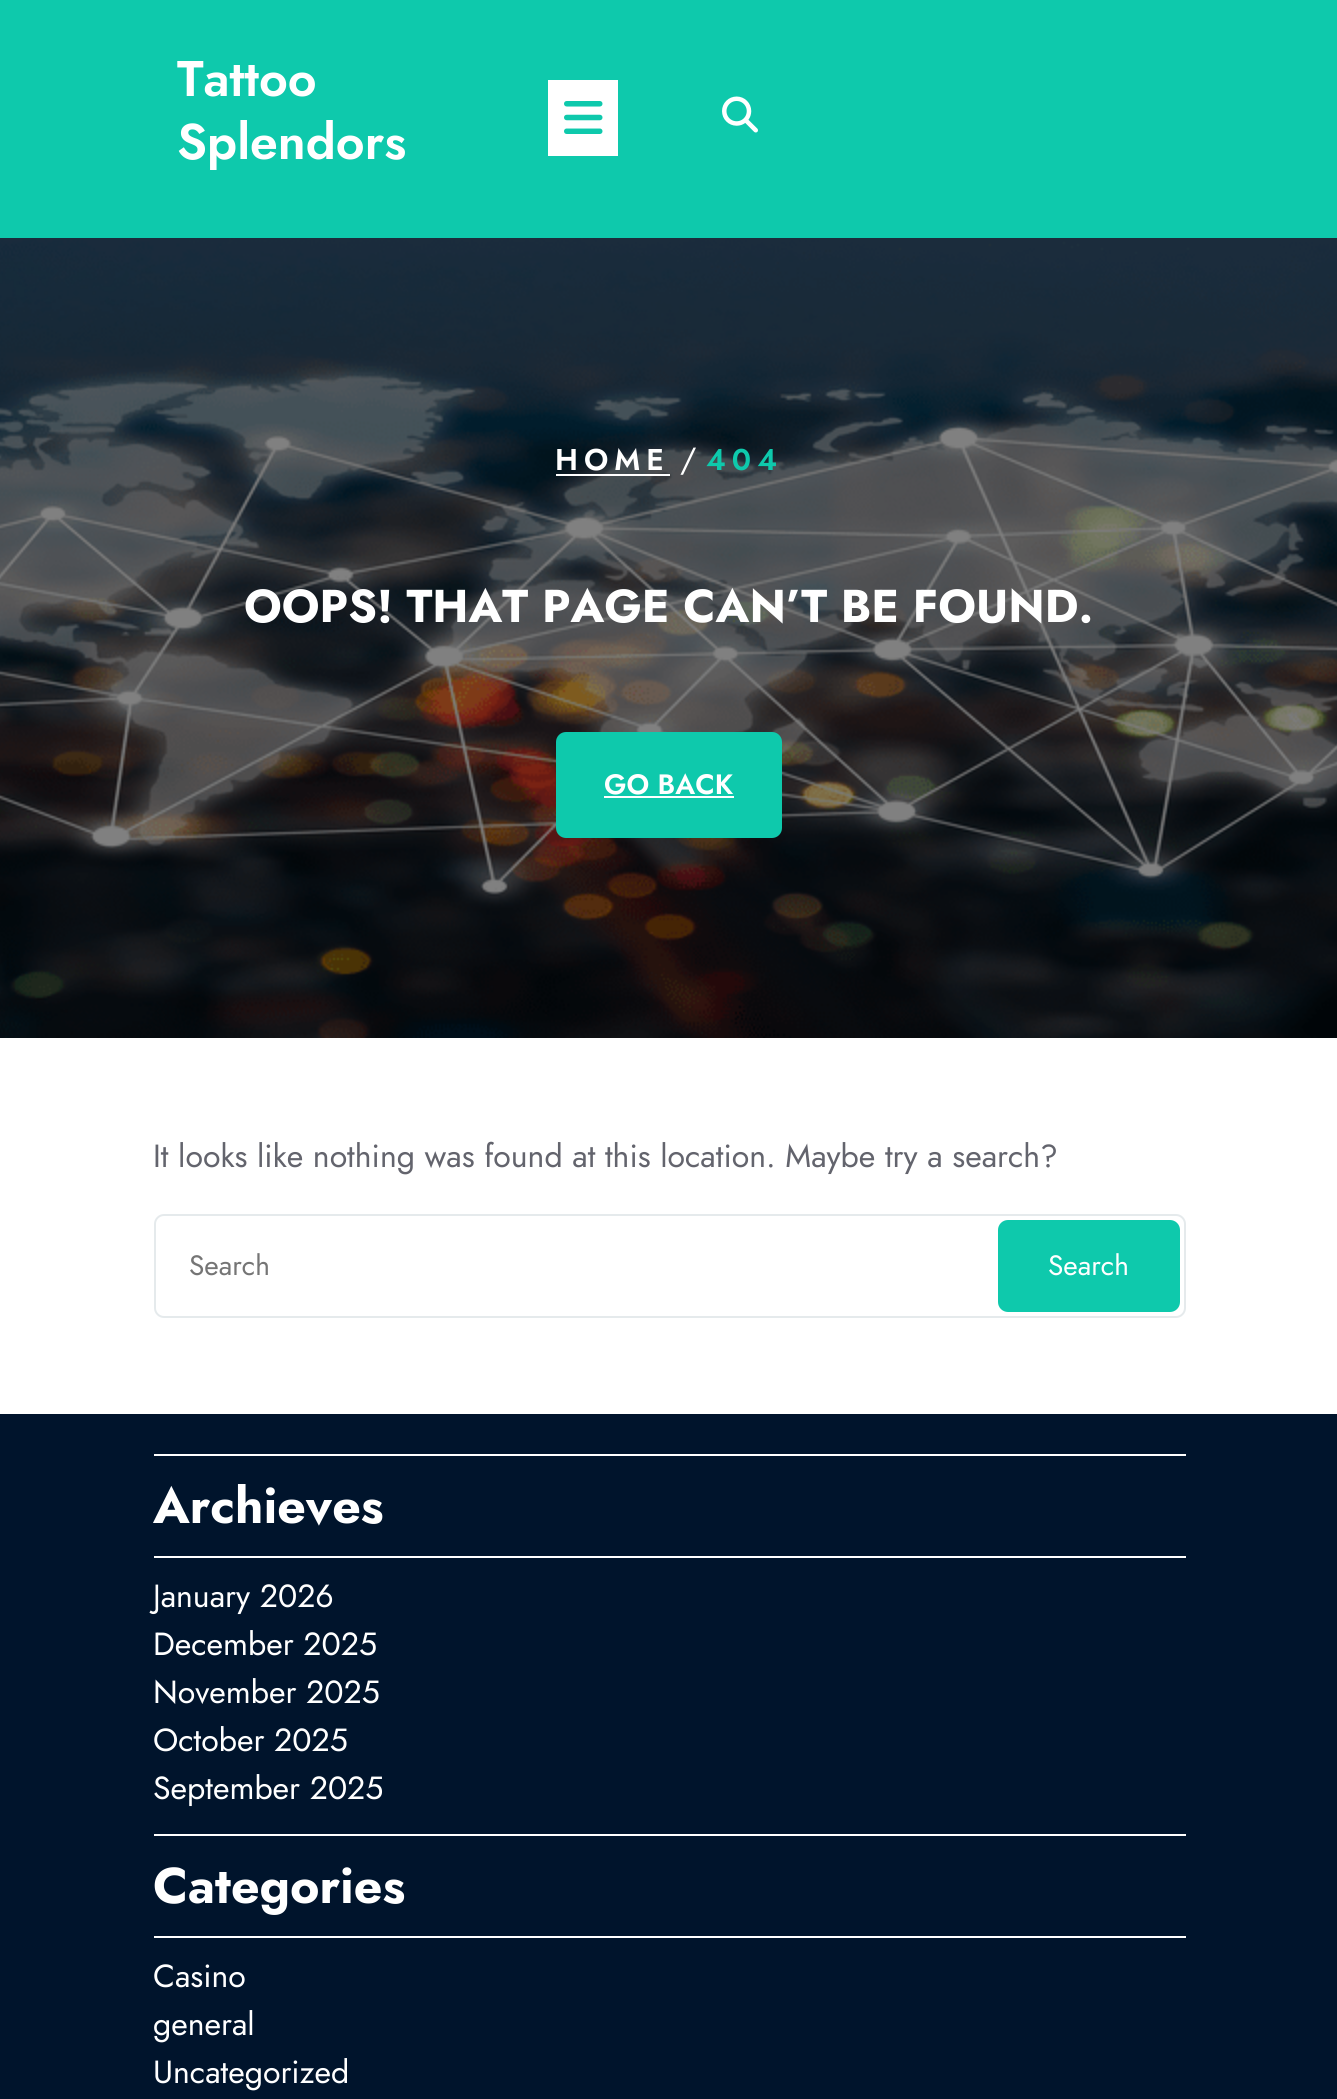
#include <cairo.h>
#include <math.h>
#include <stddef.h>

typedef struct { const char *family; double size; int italic, bold; unsigned color; } style_t;
static cairo_t *ctx;

static void ink(unsigned color) {
    cairo_set_source_rgb(ctx, (color >> 16) / 255.0, (color >> 8 & 255) / 255.0, (color & 255) / 255.0);
}

static void write(double x, double y, const char *s, const style_t *st) {
    cairo_select_font_face(ctx, st->family, st->italic ? CAIRO_FONT_SLANT_ITALIC : CAIRO_FONT_SLANT_NORMAL,
        st->bold ? CAIRO_FONT_WEIGHT_BOLD : CAIRO_FONT_WEIGHT_NORMAL);
    cairo_set_font_size(ctx, st->size);
    ink(st->color);
    cairo_move_to(ctx, x, y);
    cairo_show_text(ctx, s);
}

static void write_spaced(double x, double y, const char *s, double letter, double word) {
    cairo_move_to(ctx, x, y);
    while (*s) {
        char ch[5] = {0};
        int n = 0;
        do ch[n++] = *s++; while ((*s & 0xC0) == 0x80);
        cairo_show_text(ctx, ch);
        cairo_rel_move_to(ctx, letter + word * (*ch == ' '), 0);
    }
}

static void block(double x, double y, double w, double h, unsigned color) {
    ink(color);
    cairo_rectangle(ctx, x, y, w, h);
    cairo_fill(ctx);
}

static void round_path(double x, double y, double w, double h, double r) {
    cairo_new_sub_path(ctx);
    cairo_arc(ctx, x + w - r, y + h - r, r, 0, M_PI / 2);
    cairo_arc(ctx, x + r, y + h - r, r, M_PI / 2, M_PI);
    cairo_arc(ctx, x + r, y + r, r, M_PI, 1.5 * M_PI);
    cairo_arc(ctx, x + w - r, y + r, r, 1.5 * M_PI, 2 * M_PI);
    cairo_close_path(ctx);
}

static void paste(const char *path, double x, double y, double w, double h) {
    cairo_surface_t *image = cairo_image_surface_create_from_png(path);
    cairo_save(ctx);
    cairo_set_source_surface(ctx, image, x, y);
    cairo_rectangle(ctx, x, y, w, h);
    cairo_fill(ctx);
    cairo_restore(ctx);
    cairo_surface_destroy(image);
}

static const style_t s1 = {"Jost SemiBold", 50, 0, 0, 0xffffff};
static const style_t s2 = {"Jost", 32, 0, 0, 0xffffff};
static const style_t s3 = {"Jost", 46, 0, 1, 0xffffff};
static const style_t s4 = {"Jost SemiBold", 28, 0, 0, 0xffffff};
static const style_t s5 = {"Jost", 32, 0, 0, 0x63646d};
static const style_t s6 = {"Jost", 28, 0, 0, 0x757575};
static const style_t s7 = {"Jost", 28, 0, 0, 0xffffff};
static const style_t s8 = {"Jost", 50, 0, 1, 0xffffff};

int main(void) {
    cairo_surface_t *surface = cairo_image_surface_create(CAIRO_FORMAT_RGB24, 1337, 2099);
    ctx = cairo_create(surface);
    cairo_font_options_t *options = cairo_font_options_create();
    cairo_font_options_set_hint_metrics(options, CAIRO_HINT_METRICS_OFF);
    cairo_font_options_set_hint_style(options, CAIRO_HINT_STYLE_NONE);
    cairo_set_font_options(ctx, options);
    cairo_set_miter_limit(ctx, 4);
    ink(0xffffff);
    cairo_paint(ctx);
    block(0, 0, 1337, 238, 0x0ec9ac);
    write(177, 96, "Tattoo", &s1);
    write(177, 159, "Splendors", &s1);
    block(548, 80, 70, 76, 0xffffff);
    paste("pic1.png", 564, 101, 39, 33);
    paste("pic2.png", 722, 96, 36, 37);
    block(0, 238, 1337, 800, 0x000000);
    paste("pic3.png", 0, 238, 1337, 800);
    cairo_set_font_size(ctx, 30);
    ink(0xffffff);
    write_spaced(555, 470, "HOME", 6, 0);
    block(556, 474, 114, 2, 0xffffff);
    write(680, 470, "/", &s2);
    cairo_select_font_face(ctx, "Jost SemiBold", CAIRO_FONT_SLANT_NORMAL, CAIRO_FONT_WEIGHT_NORMAL);
    cairo_set_font_size(ctx, 30);
    ink(0x0ec9ac);
    write_spaced(706, 470, "404", 6, 0);
    write(244, 622, "OOPS! THAT PAGE CAN’T BE FOUND.", &s3);
    ink(0x0ec9ac);
    round_path(556, 732, 226, 106, 10);
    cairo_fill(ctx);
    write(604, 794, "GO BACK", &s4);
    block(604, 796, 130, 2, 0xffffff);
    write(153, 1167, "It looks like nothing was found at this location. Maybe try a search?", &s5);
    round_path(155, 1215, 1030, 102, 9);
    ink(0xe5eaec);
    cairo_stroke(ctx);
    write(189, 1275, "Search", &s6);
    ink(0x0ec9ac);
    round_path(998, 1220, 182, 92, 10);
    cairo_fill(ctx);
    write(1048, 1275, "Search", &s7);
    block(0, 1414, 1337, 685, 0x00142c);
    block(154, 1454, 1032, 2, 0xffffff);
    block(154, 1556, 1032, 2, 0xffffff);
    write(153, 1523, "Archieves", &s8);
    write(153, 1607, "January 2026", &s2);
    write(153, 1655, "December 2025", &s2);
    write(153, 1703, "November 2025", &s2);
    write(153, 1751, "October 2025", &s2);
    write(153, 1799, "September 2025", &s2);
    block(154, 1834, 1032, 2, 0xffffff);
    block(154, 1936, 1032, 2, 0xffffff);
    write(153, 1903, "Categories", &s8);
    write(153, 1987, "Casino", &s2);
    write(153, 2035, "general", &s2);
    write(153, 2083, "Uncategorized", &s2);
    cairo_surface_write_to_png(surface, "screenshot.png");
    cairo_font_options_destroy(options);
    cairo_destroy(ctx);
    cairo_surface_destroy(surface);
    return 0;
}
